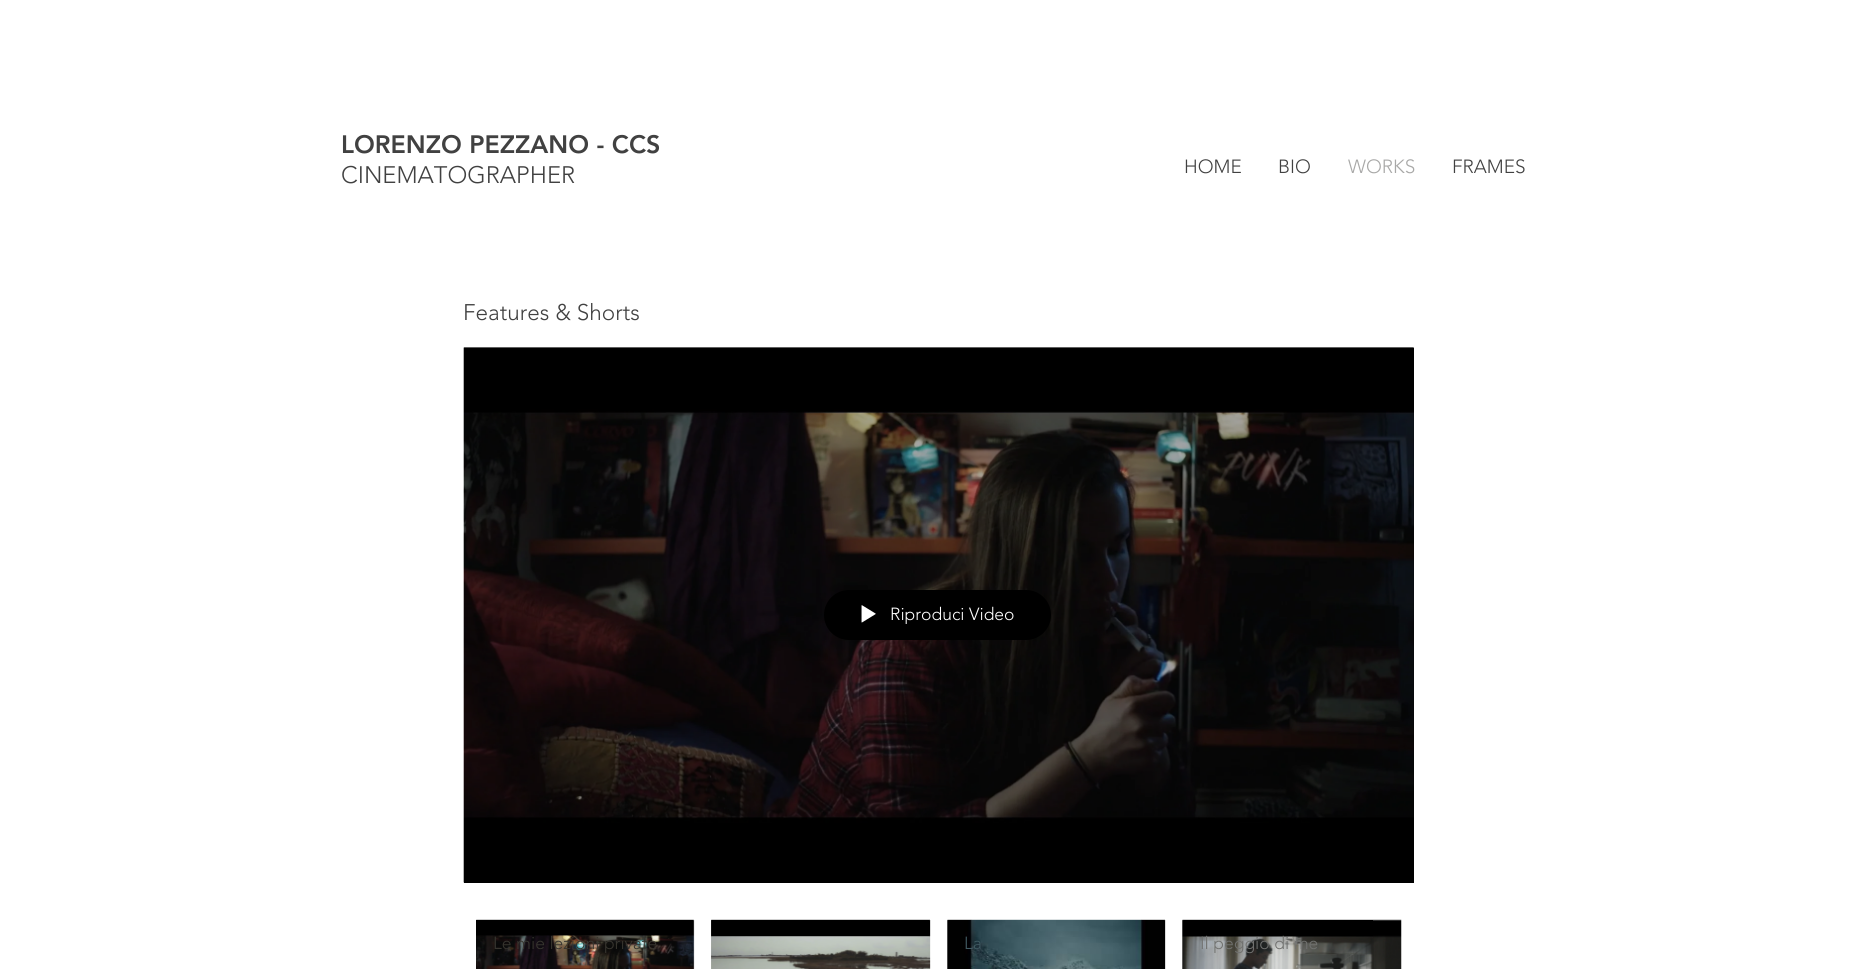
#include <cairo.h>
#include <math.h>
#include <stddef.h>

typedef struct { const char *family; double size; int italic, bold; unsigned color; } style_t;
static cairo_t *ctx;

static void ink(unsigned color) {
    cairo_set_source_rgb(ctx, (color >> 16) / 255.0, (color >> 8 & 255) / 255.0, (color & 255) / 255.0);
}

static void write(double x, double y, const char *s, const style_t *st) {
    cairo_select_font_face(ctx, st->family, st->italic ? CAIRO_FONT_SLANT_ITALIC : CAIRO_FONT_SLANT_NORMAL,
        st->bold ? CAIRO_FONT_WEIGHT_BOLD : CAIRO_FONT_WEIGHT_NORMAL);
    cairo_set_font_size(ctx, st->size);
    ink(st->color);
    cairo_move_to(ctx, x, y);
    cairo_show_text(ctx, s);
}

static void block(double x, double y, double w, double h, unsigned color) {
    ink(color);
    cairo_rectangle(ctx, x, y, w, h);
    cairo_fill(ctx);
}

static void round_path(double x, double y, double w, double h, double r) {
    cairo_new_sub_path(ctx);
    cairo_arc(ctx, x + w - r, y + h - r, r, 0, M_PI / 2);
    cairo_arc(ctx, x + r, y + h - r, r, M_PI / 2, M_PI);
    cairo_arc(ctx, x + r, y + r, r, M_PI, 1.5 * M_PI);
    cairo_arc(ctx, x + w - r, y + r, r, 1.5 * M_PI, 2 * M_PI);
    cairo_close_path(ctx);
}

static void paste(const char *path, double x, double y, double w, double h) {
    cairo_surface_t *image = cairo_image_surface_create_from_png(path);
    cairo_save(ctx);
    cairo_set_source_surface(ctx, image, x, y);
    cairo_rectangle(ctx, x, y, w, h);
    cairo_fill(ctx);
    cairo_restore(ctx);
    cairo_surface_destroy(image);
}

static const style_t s1 = {"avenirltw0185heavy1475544 Black", 25, 0, 0, 0x414141};
static const style_t s2 = {"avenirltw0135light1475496 Light", 23.75, 0, 0, 0x414141};
static const style_t s3 = {"avenirltw0135light1475496 Light", 19, 0, 0, 0x414141};
static const style_t s4 = {"avenirltw0135light1475496 Light", 19, 0, 0, 0xa8a8a7};
static const style_t s5 = {"avenirltw0135light1475496 Light", 22.5, 0, 0, 0x414141};
static const style_t s6 = {"avenirltw0135light1475496 Light", 17.5, 0, 0, 0xffffff};
static const style_t s7 = {"avenirltw0135light1475496 Light", 17.5, 0, 0, 0x37352f};
static const style_t s8 = {"avenirltw0135light1475496 Light", 17.5, 0, 0, 0x405a62};
static const style_t s9 = {"avenirltw0135light1475496 Light", 17.5, 0, 0, 0x70716f};

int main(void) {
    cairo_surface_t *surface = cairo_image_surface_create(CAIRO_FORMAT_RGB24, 1868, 969);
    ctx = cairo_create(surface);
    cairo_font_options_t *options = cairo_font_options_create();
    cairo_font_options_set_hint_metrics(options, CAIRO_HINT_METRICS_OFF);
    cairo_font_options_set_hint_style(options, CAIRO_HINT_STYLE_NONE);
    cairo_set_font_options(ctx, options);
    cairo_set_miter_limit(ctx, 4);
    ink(0xffffff);
    cairo_paint(ctx);
    write(341, 153, "LORENZO PEZZANO - CCS", &s1);
    write(341, 183, "CINEMATOGRAPHER", &s2);
    write(1184, 173, "HOME", &s3);
    write(1278, 173, "BIO", &s3);
    write(1348, 173, "WORKS", &s4);
    write(1452, 173, "FRAMES", &s3);
    write(463, 320, "Features & Shorts", &s5);
    block(464, 348, 950, 535, 0x000000);
    paste("pic1.png", 463, 347, 951, 536);
    paste("pic2.png", 463, 347, 951, 535);
    round_path(824, 590, 227, 50, 25);
    cairo_fill(ctx);
    paste("pic3.png", 861, 605, 15, 18);
    write(890, 620, "Riproduci Video", &s6);
    paste("pic4.png", 476, 919, 218, 50);
    paste("pic5.png", 476, 920, 219, 49);
    write(493, 949, "Le mie lezioni private", &s7);
    paste("pic6.png", 711, 919, 219, 50);
    paste("pic7.png", 711, 920, 220, 49);
    paste("pic8.png", 947, 919, 218, 50);
    paste("pic9.png", 947, 920, 219, 49);
    write(964, 949, "La", &s8);
    paste("pic10.png", 1182, 919, 220, 50);
    paste("pic11.png", 1182, 920, 191, 49);
    write(1200, 949, "Il peggio di me", &s9);
    cairo_surface_write_to_png(surface, "screenshot.png");
    cairo_font_options_destroy(options);
    cairo_destroy(ctx);
    cairo_surface_destroy(surface);
    return 0;
}
